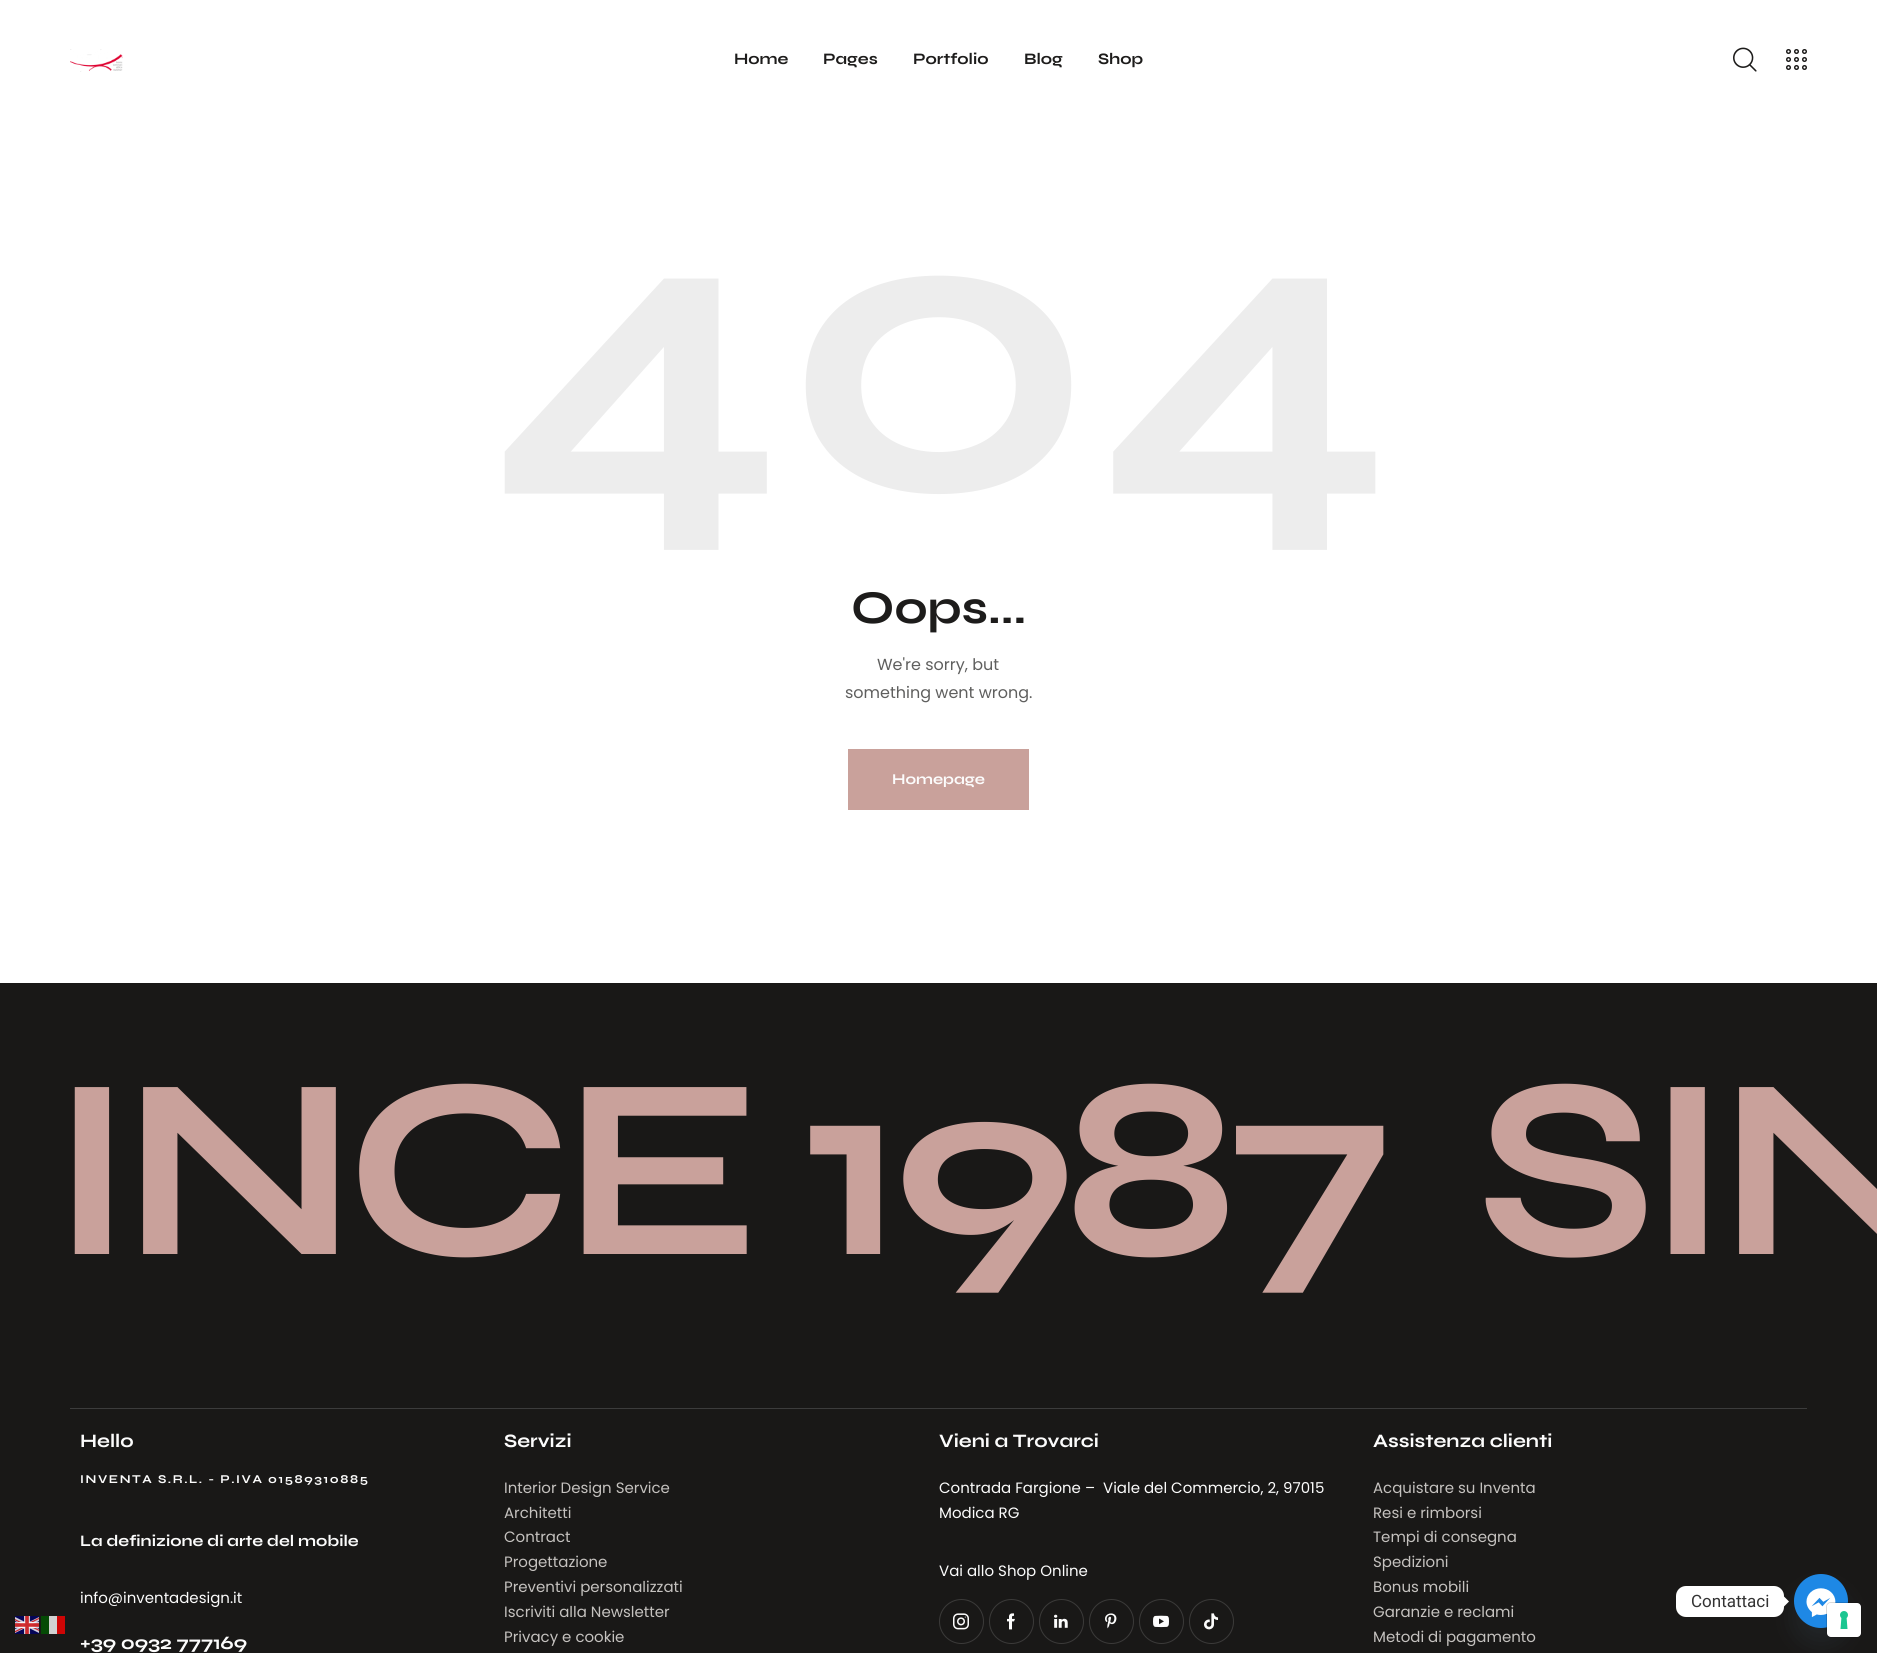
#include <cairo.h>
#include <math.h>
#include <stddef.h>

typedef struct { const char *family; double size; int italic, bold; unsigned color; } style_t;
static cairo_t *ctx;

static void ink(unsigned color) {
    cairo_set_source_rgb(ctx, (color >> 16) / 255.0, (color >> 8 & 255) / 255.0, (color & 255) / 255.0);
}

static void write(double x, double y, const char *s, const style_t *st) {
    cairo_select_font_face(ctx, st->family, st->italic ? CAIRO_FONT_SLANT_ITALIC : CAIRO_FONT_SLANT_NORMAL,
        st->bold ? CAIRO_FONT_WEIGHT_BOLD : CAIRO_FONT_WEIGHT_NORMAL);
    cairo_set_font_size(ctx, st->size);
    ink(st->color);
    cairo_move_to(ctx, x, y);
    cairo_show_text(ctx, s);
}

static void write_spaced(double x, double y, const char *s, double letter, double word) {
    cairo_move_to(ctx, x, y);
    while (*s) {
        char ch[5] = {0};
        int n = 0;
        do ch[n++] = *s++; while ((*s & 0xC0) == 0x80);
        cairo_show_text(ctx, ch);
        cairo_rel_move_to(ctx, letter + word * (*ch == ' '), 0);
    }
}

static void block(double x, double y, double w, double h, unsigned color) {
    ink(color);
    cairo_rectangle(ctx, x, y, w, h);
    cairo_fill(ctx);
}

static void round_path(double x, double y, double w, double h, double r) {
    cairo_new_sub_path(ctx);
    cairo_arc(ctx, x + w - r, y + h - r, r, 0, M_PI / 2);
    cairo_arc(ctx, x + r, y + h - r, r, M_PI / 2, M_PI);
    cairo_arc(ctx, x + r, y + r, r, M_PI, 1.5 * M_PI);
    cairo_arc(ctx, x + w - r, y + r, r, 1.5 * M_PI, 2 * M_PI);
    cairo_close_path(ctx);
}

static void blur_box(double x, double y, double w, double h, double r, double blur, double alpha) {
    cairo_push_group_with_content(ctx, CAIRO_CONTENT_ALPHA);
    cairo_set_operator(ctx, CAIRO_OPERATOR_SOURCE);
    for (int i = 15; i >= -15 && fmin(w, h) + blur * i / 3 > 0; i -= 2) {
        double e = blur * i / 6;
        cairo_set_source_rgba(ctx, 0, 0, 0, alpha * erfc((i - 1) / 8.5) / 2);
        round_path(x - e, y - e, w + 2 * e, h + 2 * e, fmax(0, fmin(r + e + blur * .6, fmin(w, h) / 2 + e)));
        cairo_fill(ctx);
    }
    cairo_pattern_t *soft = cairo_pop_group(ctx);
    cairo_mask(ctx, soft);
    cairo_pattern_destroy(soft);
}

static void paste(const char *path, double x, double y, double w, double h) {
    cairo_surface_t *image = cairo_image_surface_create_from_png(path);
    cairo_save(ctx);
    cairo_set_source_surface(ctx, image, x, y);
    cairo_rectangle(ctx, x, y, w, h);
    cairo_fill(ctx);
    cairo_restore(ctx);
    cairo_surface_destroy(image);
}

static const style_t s1 = {"Syne", 16, 0, 1, 0x1d1c1b};
static const style_t s2 = {"Syne", 420, 0, 1, 0xededed};
static const style_t s3 = {"Syne", 47, 0, 1, 0x1d1c1b};
static const style_t s4 = {"Poppins", 16, 0, 0, 0x5f5f5e};
static const style_t s5 = {"Syne", 15, 0, 1, 0xfcfcfc};
static const style_t s6 = {"Syne", 19, 0, 1, 0xfcfcfc};
static const style_t s7 = {"Syne", 16, 0, 1, 0xfcfcfc};
static const style_t s8 = {"Poppins", 15, 0, 0, 0xfcfcfc};
static const style_t s9 = {"Poppins", 15, 0, 0, 0xc5c2bf};
static const style_t s10 = {"Roboto", 17, 0, 0, 0x333333};

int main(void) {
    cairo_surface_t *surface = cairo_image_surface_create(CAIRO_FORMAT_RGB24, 1877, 1653);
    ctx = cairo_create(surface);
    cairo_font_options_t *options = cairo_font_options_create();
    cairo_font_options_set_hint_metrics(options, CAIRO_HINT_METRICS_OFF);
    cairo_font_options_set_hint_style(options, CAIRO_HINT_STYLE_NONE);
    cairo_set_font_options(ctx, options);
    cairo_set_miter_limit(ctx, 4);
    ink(0xffffff);
    cairo_paint(ctx);
    paste("pic1.png", 70, 49, 53, 23);
    write(734, 64, "Home", &s1);
    write(823, 64, "Pages", &s1);
    write(913, 64, "Portfolio", &s1);
    write(1024, 64, "Blog", &s1);
    write(1098, 64, "Shop", &s1);
    paste("pic2.png", 1733, 47, 24, 25);
    paste("pic3.png", 1786, 49, 21, 21);
    write(485, 489, "404", &s2);
    write(851, 623, "Oops...", &s3);
    write(877, 670, "We're sorry, but", &s4);
    write(845, 698, "something went wrong.", &s4);
    block(848, 749, 181, 61, 0xc9a19b);
    write(892, 784, "Homepage", &s5);
    block(0, 983, 1877, 670, 0x191817);
    cairo_set_font_size(ctx, 258);
    ink(0xc9a19b);
    write_spaced(50, 1254, "INCE 1987", -10.25, 0);
    write_spaced(1477, 1254, "SIN", -10.25, 0);
    block(70, 1408, 1737, 1, 0x3c3c3c);
    write(80, 1447, "Hello", &s6);
    cairo_set_font_size(ctx, 12);
    write_spaced(80, 1483, "INVENTA S.R.L. - P.IVA 01589310885", 1.6, 0);
    write(80, 1546, "La definizione di arte del mobile", &s7);
    write(80, 1603, "info@inventadesign.it", &s8);
    write(80, 1649, "+39 0932 777169", &s6);
    write(504, 1447, "Servizi", &s6);
    write(504, 1493, "Interior Design Service", &s9);
    write(504, 1518, "Architetti", &s9);
    write(504, 1542, "Contract", &s9);
    write(504, 1567, "Progettazione", &s9);
    write(504, 1592, "Preventivi personalizzati", &s9);
    write(504, 1617, "Iscriviti alla Newsletter", &s9);
    write(504, 1642, "Privacy e cookie", &s9);
    write(939, 1447, "Vieni a Trovarci", &s6);
    write(939, 1493, "Contrada Fargione –", &s8);
    write(1103, 1493, "Viale del Commercio, 2, 97015", &s8);
    write(939, 1518, "Modica RG", &s8);
    write(939, 1576, "Vai allo Shop Online", &s8);
    cairo_new_path(ctx);
    cairo_arc(ctx, 961.5, 1621.5, 22, 0, 2 * M_PI);
    ink(0x3b3a39);
    cairo_set_line_width(ctx, 1);
    cairo_stroke(ctx);
    paste("pic4.png", 953, 1613, 16, 17);
    cairo_arc(ctx, 1011.5, 1621.5, 22, 0, 2 * M_PI);
    cairo_stroke(ctx);
    paste("pic5.png", 1007, 1613, 8, 17);
    cairo_arc(ctx, 1061.5, 1621.5, 22, 0, 2 * M_PI);
    cairo_stroke(ctx);
    paste("pic6.png", 1054, 1614, 14, 14);
    cairo_arc(ctx, 1111.5, 1621.5, 22, 0, 2 * M_PI);
    cairo_stroke(ctx);
    paste("pic7.png", 1105, 1613, 12, 16);
    cairo_arc(ctx, 1161.5, 1621.5, 22, 0, 2 * M_PI);
    cairo_stroke(ctx);
    paste("pic8.png", 1153, 1615, 16, 13);
    cairo_arc(ctx, 1211.5, 1621.5, 22, 0, 2 * M_PI);
    cairo_stroke(ctx);
    paste("pic9.png", 1204, 1613, 15, 17);
    write(1373, 1447, "Assistenza clienti", &s6);
    write(1373, 1493, "Acquistare su Inventa", &s9);
    write(1373, 1518, "Resi e rimborsi", &s9);
    write(1373, 1542, "Tempi di consegna", &s9);
    write(1373, 1567, "Spedizioni", &s9);
    write(1373, 1592, "Bonus mobili", &s9);
    write(1373, 1617, "Garanzie e reclami", &s9);
    write(1373, 1642, "Metodi di pagamento", &s9);
    paste("pic10.png", 15, 1616, 24, 18);
    block(41, 1616, 8, 18, 0x054a05);
    block(49, 1616, 8, 18, 0xd1d1d1);
    block(57, 1616, 8, 18, 0xcf0505);
    ink(0x49687e);
    blur_box(1794, 1590, 54, 54, 27, 12, 0.16);
    ink(0xffffff);
    round_path(1676, 1586, 108, 31, 10);
    cairo_fill(ctx);
    write(1691, 1607, "Contattaci", &s10);
    ink(0xffffff);
    cairo_new_path(ctx);
    cairo_move_to(ctx, 1784, 1606.5);
    cairo_line_to(ctx, 1784, 1596.5);
    cairo_line_to(ctx, 1789, 1601.5);
    cairo_close_path(ctx);
    cairo_fill(ctx);
    paste("pic11.png", 1794, 1574, 54, 54);
    round_path(1826.5, 1602.5, 35, 35, 4.5);
    cairo_set_source_rgba(ctx, 0, 0, 0, 0.15);
    cairo_stroke(ctx);
    ink(0xffffff);
    round_path(1827, 1603, 34, 34, 4);
    cairo_fill(ctx);
    paste("pic12.png", 1840, 1611, 8, 18);
    cairo_surface_write_to_png(surface, "screenshot.png");
    cairo_font_options_destroy(options);
    cairo_destroy(ctx);
    cairo_surface_destroy(surface);
    return 0;
}
